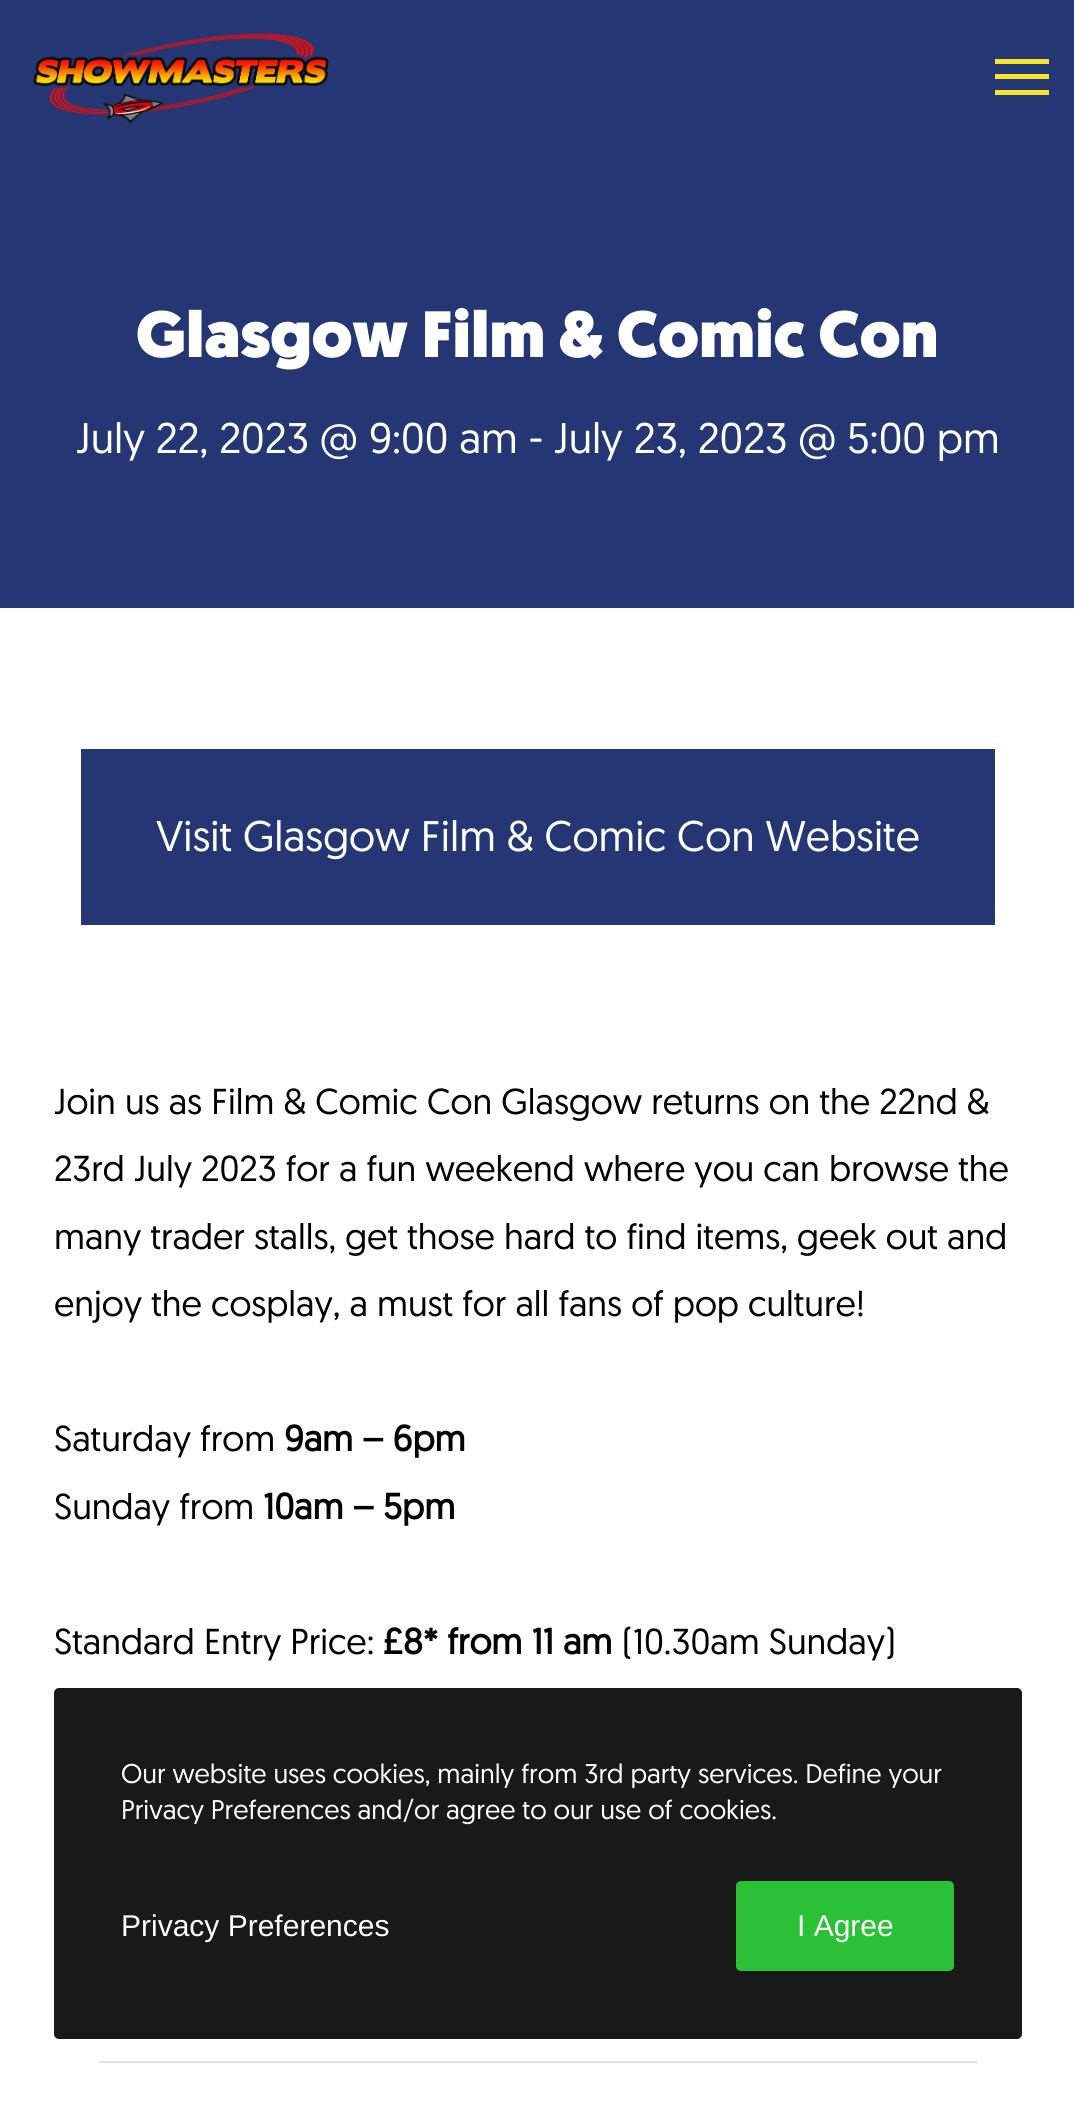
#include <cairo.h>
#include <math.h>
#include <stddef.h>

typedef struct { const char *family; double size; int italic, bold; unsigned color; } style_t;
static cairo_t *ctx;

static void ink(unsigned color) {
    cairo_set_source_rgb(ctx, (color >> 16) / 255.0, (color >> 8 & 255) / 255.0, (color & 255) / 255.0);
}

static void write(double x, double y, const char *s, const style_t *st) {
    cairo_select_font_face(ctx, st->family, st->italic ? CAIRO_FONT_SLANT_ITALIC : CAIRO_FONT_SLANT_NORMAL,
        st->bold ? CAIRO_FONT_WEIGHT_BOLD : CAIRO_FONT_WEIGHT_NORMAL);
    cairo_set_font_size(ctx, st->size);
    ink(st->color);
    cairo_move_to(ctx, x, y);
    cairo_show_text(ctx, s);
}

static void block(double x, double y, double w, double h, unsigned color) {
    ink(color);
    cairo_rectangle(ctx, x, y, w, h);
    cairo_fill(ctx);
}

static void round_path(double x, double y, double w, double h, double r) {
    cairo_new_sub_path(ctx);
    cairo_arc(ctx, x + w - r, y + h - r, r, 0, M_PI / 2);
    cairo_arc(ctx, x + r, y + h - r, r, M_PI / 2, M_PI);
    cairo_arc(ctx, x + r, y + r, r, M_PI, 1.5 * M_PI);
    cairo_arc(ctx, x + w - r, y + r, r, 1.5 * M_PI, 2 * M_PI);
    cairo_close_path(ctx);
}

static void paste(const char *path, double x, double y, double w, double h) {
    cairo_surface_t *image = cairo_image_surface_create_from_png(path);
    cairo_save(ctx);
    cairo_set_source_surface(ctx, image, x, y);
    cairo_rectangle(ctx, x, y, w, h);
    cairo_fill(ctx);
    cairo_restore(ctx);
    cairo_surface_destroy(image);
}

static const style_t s1 = {"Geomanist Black", 65.25, 0, 0, 0xffffff};
static const style_t s2 = {"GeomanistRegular", 42.75, 0, 0, 0xffffff};
static const style_t s3 = {"GeomanistRegular", 36, 0, 0, 0x000000};
static const style_t s4 = {"GeomanistRegular", 36, 0, 1, 0x000000};
static const style_t s5 = {"GeomanistRegular", 27, 0, 0, 0xffffff};
static const style_t s6 = {"Liberation Sans", 30, 0, 0, 0xffffff};

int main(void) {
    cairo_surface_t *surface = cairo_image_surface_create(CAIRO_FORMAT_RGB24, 1074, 2123);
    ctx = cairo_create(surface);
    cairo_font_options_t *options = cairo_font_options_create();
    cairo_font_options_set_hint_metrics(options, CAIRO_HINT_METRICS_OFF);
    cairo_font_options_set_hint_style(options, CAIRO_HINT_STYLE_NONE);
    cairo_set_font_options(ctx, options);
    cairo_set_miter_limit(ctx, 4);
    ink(0xffffff);
    cairo_paint(ctx);
    block(0, 0, 1074, 608, 0x243774);
    paste("pic1.png", 33, 33, 296, 91);
    block(995, 59, 54, 5, 0xf6e529);
    block(995, 74, 54, 5, 0xf6e529);
    block(995, 90, 54, 5, 0xf6e529);
    write(136, 357, "Glasgow Film & Comic Con", &s1);
    write(76, 453, "July 22, 2023 @ 9:00 am - July 23, 2023 @ 5:00 pm", &s2);
    block(81, 749, 914, 176, 0x243774);
    write(156, 851, "Visit Glasgow Film & Comic Con Website", &s2);
    write(54, 1114, "Join us as Film & Comic Con Glasgow returns on the 22nd &", &s3);
    write(54, 1181, "23rd July 2023 for a fun weekend where you can browse the", &s3);
    write(54, 1249, "many trader stalls, get those hard to find items, geek out and", &s3);
    write(54, 1316, "enjoy the cosplay, a must for all fans of pop culture!", &s3);
    write(54, 1451, "Saturday from", &s3);
    write(284, 1451, "9am – 6pm", &s4);
    write(54, 1519, "Sunday from", &s3);
    write(263, 1519, "10am – 5pm", &s4);
    write(54, 1654, "Standard Entry Price:", &s3);
    write(383, 1654, "£8* from 11 am", &s4);
    write(622, 1654, "(10.30am Sunday)", &s3);
    block(99, 2061, 878, 2, 0xe4e4e4);
    cairo_set_source_rgba(ctx, 0, 0, 0, 0.9);
    round_path(54, 1688, 968, 351, 5);
    cairo_fill(ctx);
    write(121, 1783, "Our website uses cookies, mainly from 3rd party services. Define your", &s5);
    write(121, 1819, "Privacy Preferences and/or agree to our use of cookies.", &s5);
    write(121, 1936, "Privacy Preferences", &s6);
    ink(0x2bc137);
    round_path(736, 1881, 218, 90, 5);
    cairo_fill(ctx);
    write(797, 1936, "I Agree", &s6);
    cairo_surface_write_to_png(surface, "screenshot.png");
    cairo_font_options_destroy(options);
    cairo_destroy(ctx);
    cairo_surface_destroy(surface);
    return 0;
}
